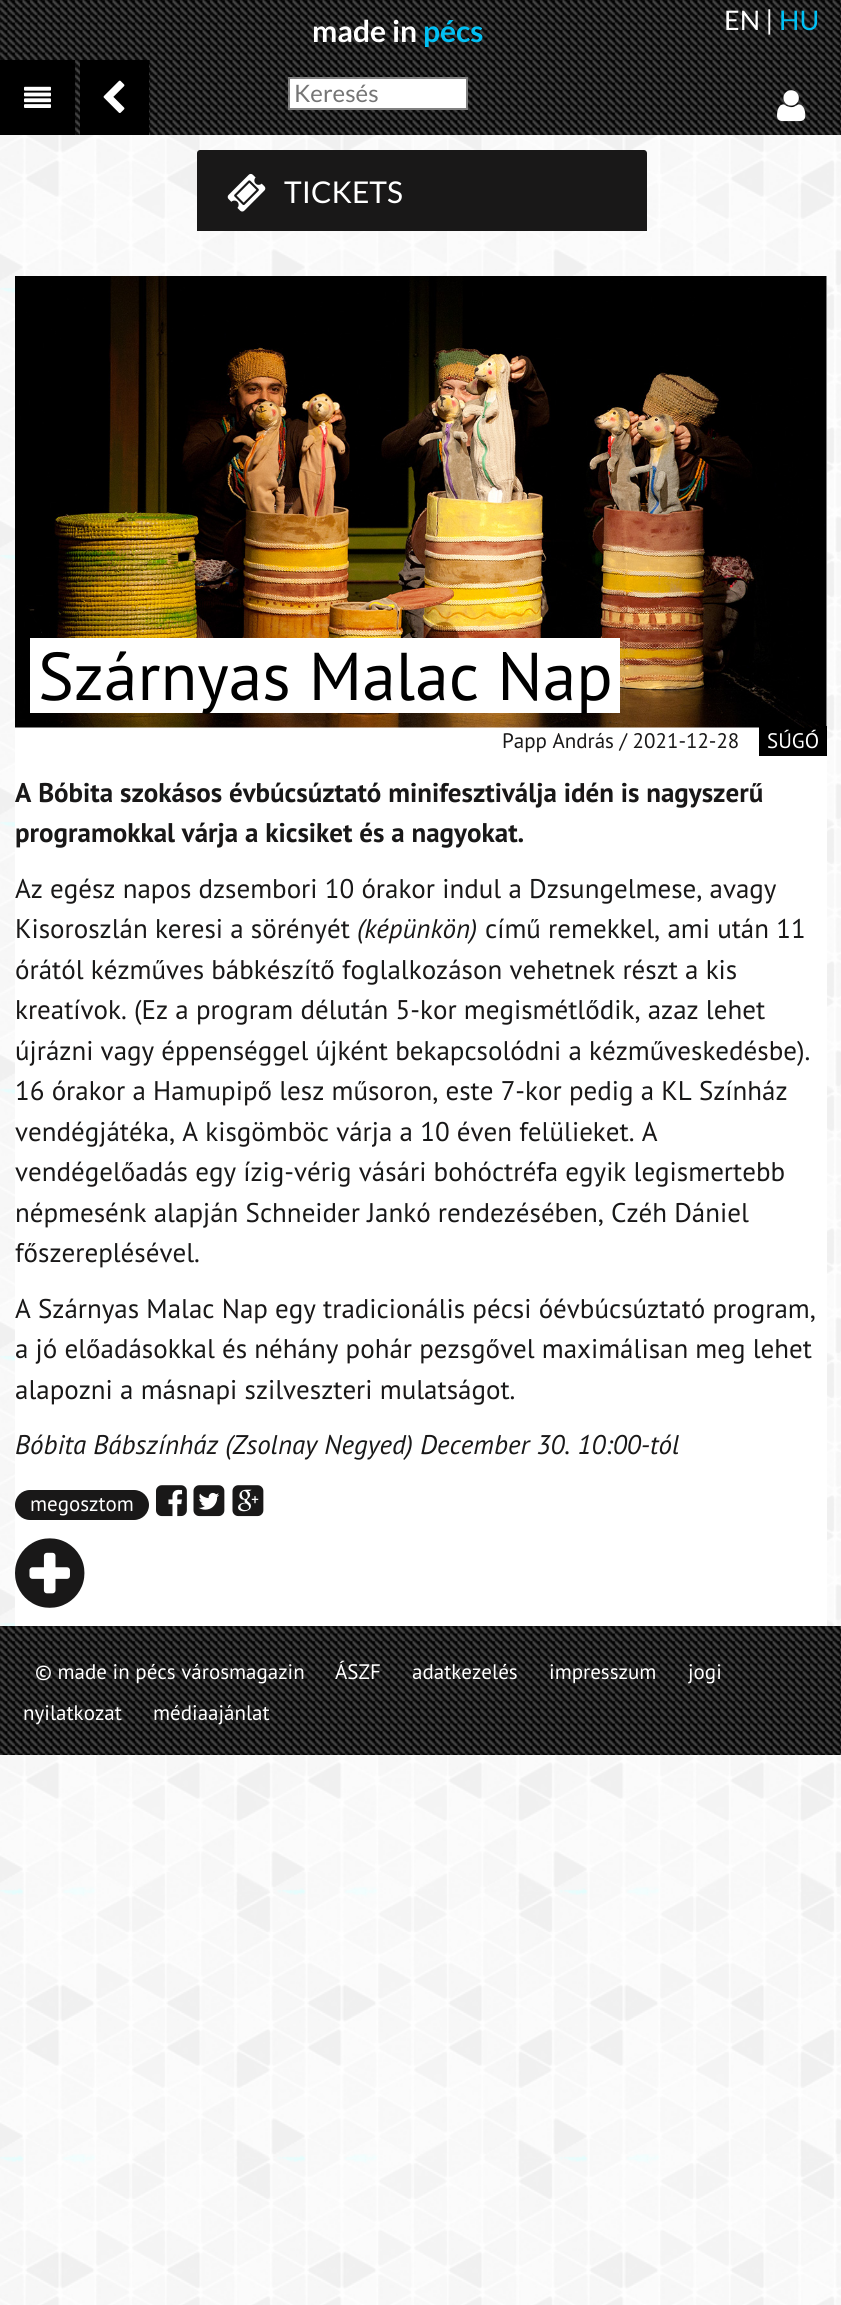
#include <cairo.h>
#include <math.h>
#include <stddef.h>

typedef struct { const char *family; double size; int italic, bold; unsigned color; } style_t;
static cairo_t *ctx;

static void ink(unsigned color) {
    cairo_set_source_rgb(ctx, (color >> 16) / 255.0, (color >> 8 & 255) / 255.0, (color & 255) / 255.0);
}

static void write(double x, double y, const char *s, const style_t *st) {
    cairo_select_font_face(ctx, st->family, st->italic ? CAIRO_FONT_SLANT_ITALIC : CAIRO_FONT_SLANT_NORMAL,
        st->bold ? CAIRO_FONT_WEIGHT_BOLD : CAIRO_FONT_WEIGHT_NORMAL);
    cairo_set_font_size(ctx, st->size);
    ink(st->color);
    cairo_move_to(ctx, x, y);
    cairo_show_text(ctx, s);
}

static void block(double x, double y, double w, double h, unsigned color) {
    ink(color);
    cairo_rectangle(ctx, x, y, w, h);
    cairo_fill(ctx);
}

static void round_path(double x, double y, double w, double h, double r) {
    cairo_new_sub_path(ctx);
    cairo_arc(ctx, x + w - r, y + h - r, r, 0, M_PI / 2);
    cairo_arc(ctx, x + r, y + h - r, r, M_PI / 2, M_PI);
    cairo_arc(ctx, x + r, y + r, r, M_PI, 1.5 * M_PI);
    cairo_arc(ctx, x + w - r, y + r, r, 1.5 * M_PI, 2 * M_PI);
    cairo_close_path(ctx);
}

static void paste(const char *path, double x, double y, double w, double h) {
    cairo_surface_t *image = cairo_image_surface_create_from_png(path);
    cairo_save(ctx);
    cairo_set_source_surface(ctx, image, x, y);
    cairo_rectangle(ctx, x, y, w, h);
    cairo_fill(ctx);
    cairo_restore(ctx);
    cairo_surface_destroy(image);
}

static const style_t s1 = {"Lato", 30, 0, 1, 0xffffff};
static const style_t s2 = {"Lato", 30, 0, 1, 0x01c0f4};
static const style_t s3 = {"Lato", 27, 0, 0, 0xffffff};
static const style_t s4 = {"Lato", 27, 0, 0, 0x01c0f4};
static const style_t s5 = {"Lato", 24, 0, 0, 0x757575};
static const style_t s6 = {"Lato", 30, 0, 0, 0xffffff};
static const style_t s7 = {"PT Sans", 67.5, 0, 0, 0x000000};
static const style_t s8 = {"PT Sans", 21, 0, 0, 0x191818};
static const style_t s9 = {"PT Sans", 21, 0, 0, 0xffffff};
static const style_t s10 = {"PT Sans", 27, 0, 1, 0x191818};
static const style_t s11 = {"PT Sans", 27, 0, 0, 0x191818};
static const style_t s12 = {"PT Sans", 27, 1, 0, 0x191818};

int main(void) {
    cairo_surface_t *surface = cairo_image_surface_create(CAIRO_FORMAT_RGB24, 841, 2305);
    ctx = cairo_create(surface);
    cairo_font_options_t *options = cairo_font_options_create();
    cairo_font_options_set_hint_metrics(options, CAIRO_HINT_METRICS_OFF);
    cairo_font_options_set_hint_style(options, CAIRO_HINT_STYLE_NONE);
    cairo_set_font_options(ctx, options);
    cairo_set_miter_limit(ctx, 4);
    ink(0xffffff);
    cairo_paint(ctx);
    paste("pic1.png", 0, 135, 841, 2170);
    block(0, 0, 841, 135, 0x000000);
    paste("pic2.png", 0, 0, 841, 135);
    write(312, 42, "made in", &s1);
    write(423, 42, "pécs", &s2);
    write(724, 30, "EN |", &s3);
    write(779, 30, "HU", &s4);
    block(0, 60, 75, 75, 0x000000);
    paste("pic3.png", 24, 86, 27, 22);
    block(80, 60, 69, 75, 0x000000);
    paste("pic4.png", 103, 80, 22, 33);
    ink(0xffffff);
    cairo_rectangle(ctx, 289, 78, 178, 31);
    cairo_fill_preserve(ctx);
    ink(0x808080);
    cairo_stroke(ctx);
    write(294, 102, "Keresés", &s5);
    paste("pic5.png", 777, 90, 29, 32);
    ink(0x191818);
    cairo_new_path(ctx);
    cairo_move_to(ctx, 200, 150);
    cairo_line_to(ctx, 644, 150);
    cairo_curve_to(ctx, 645.5, 150, 647, 151.5, 647, 153);
    cairo_line_to(ctx, 647, 231);
    cairo_line_to(ctx, 197, 231);
    cairo_line_to(ctx, 197, 153);
    cairo_curve_to(ctx, 197, 151.5, 198.5, 150, 200, 150);
    cairo_close_path(ctx);
    cairo_fill(ctx);
    paste("pic6.png", 227, 173, 39, 39);
    write(284, 203, "TICKETS", &s6);
    block(15, 276, 812, 1350, 0xffffff);
    block(759, 726, 68, 30, 0x000000);
    paste("pic7.png", 15, 276, 812, 452);
    block(30, 638, 590, 75, 0xffffff);
    write(38, 700, "Szárnyas Malac Nap", &s7);
    write(502, 748, "Papp András / 2021-12-28", &s8);
    write(767, 748, "SÚGÓ", &s9);
    write(15, 802, "A Bóbita szokásos évbúcsúztató minifesztiválja idén is nagyszerű", &s10);
    write(15, 842, "programokkal várja a kicsiket és a nagyokat.", &s10);
    write(15, 898, "Az egész napos dzsembori 10 órakor indul a Dzsungelmese, avagy", &s11);
    write(15, 938, "Kisoroszlán keresi a sörényét", &s11);
    write(357, 938, "(képünkön)", &s12);
    write(485, 938, "című remekkel, ami után 11", &s11);
    write(15, 979, "órától kézműves bábkészítő foglalkozáson vehetnek részt a kis", &s11);
    write(15, 1019, "kreatívok. (Ez a program délután 5-kor megismétlődik, azaz lehet", &s11);
    write(15, 1060, "újrázni vagy éppenséggel újként bekapcsolódni a kézműveskedésbe).", &s11);
    write(15, 1100, "16 órakor a Hamupipő lesz műsoron, este 7-kor pedig a KL Színház", &s11);
    write(15, 1141, "vendégjátéka, A kisgömböc várja a 10 éven felülieket. A", &s11);
    write(15, 1181, "vendégelőadás egy ízig-vérig vásári bohóctréfa egyik legismertebb", &s11);
    write(15, 1222, "népmesénk alapján Schneider Jankó rendezésében, Czéh Dániel", &s11);
    write(15, 1262, "főszereplésével.", &s11);
    write(15, 1318, "A Szárnyas Malac Nap egy tradicionális pécsi óévbúcsúztató program,", &s11);
    write(15, 1358, "a jó előadásokkal és néhány pohár pezsgővel maximálisan meg lehet", &s11);
    write(15, 1399, "alapozni a másnapi szilveszteri mulatságot.", &s11);
    write(15, 1454, "Bóbita Bábszínház (Zsolnay Negyed) December 30. 10:00-tól", &s12);
    round_path(15, 1490, 134, 30, 15);
    cairo_fill(ctx);
    write(30, 1511, "megosztom", &s9);
    paste("pic8.png", 156, 1485, 31, 32);
    paste("pic9.png", 193, 1485, 32, 32);
    paste("pic10.png", 232, 1485, 32, 32);
    paste("pic11.png", 15, 1538, 70, 70);
    block(0, 1626, 841, 129, 0x000000);
    paste("pic12.png", 0, 1626, 841, 129);
    write(35, 1679, "© made in pécs városmagazin", &s9);
    write(335, 1679, "ÁSZF", &s9);
    write(412, 1679, "adatkezelés", &s9);
    write(549, 1679, "impresszum", &s9);
    write(688, 1679, "jogi", &s9);
    write(23, 1720, "nyilatkozat", &s9);
    write(153, 1720, "médiaajánlat", &s9);
    cairo_surface_write_to_png(surface, "screenshot.png");
    cairo_font_options_destroy(options);
    cairo_destroy(ctx);
    cairo_surface_destroy(surface);
    return 0;
}
